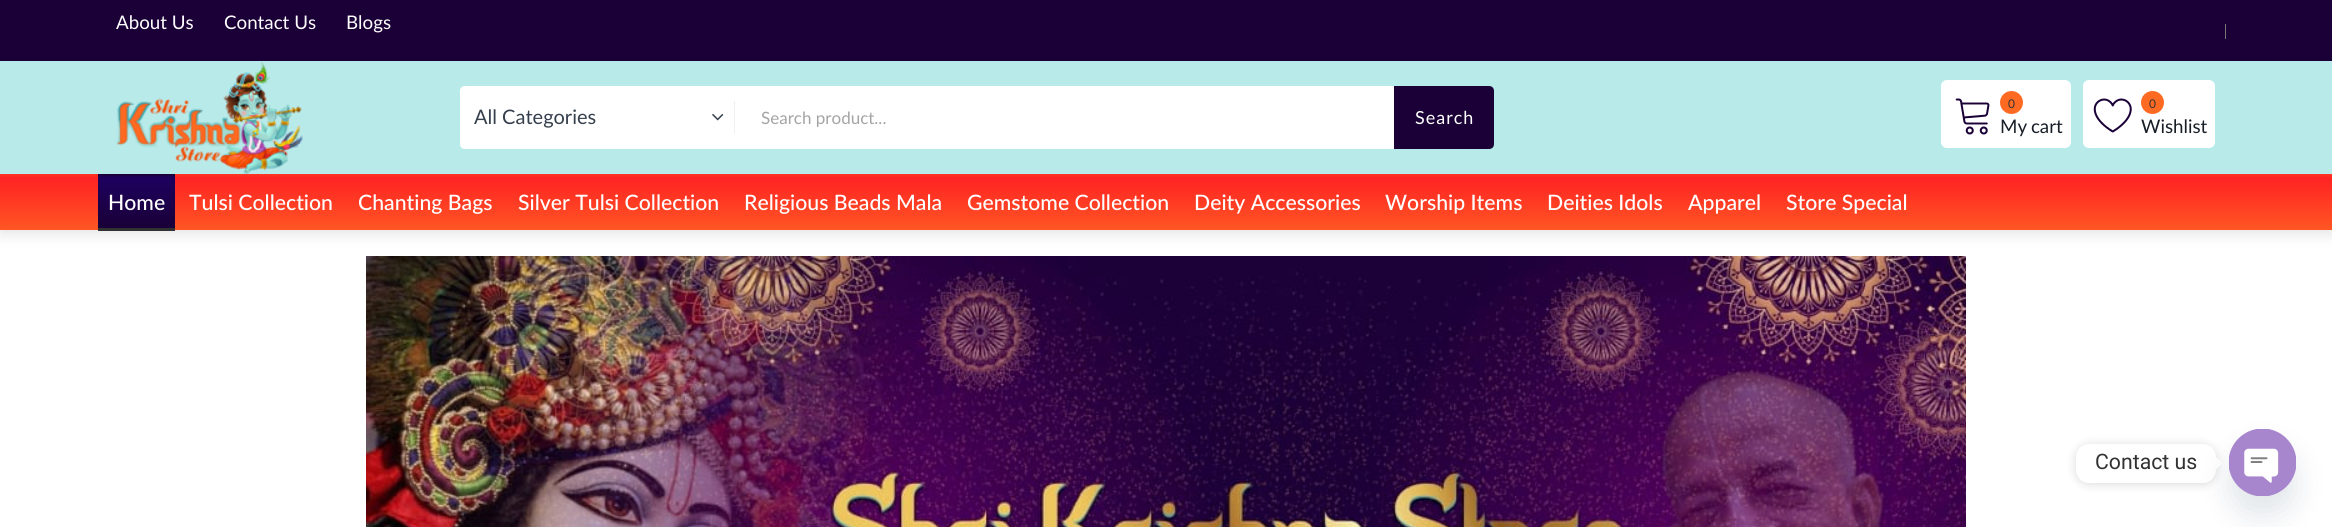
#include <cairo.h>
#include <math.h>
#include <stddef.h>

typedef struct { const char *family; double size; int italic, bold; unsigned color; } style_t;
static cairo_t *ctx;

static void ink(unsigned color) {
    cairo_set_source_rgb(ctx, (color >> 16) / 255.0, (color >> 8 & 255) / 255.0, (color & 255) / 255.0);
}

static void write(double x, double y, const char *s, const style_t *st) {
    cairo_select_font_face(ctx, st->family, st->italic ? CAIRO_FONT_SLANT_ITALIC : CAIRO_FONT_SLANT_NORMAL,
        st->bold ? CAIRO_FONT_WEIGHT_BOLD : CAIRO_FONT_WEIGHT_NORMAL);
    cairo_set_font_size(ctx, st->size);
    ink(st->color);
    cairo_move_to(ctx, x, y);
    cairo_show_text(ctx, s);
}

static void write_spaced(double x, double y, const char *s, double letter, double word) {
    cairo_move_to(ctx, x, y);
    while (*s) {
        char ch[5] = {0};
        int n = 0;
        do ch[n++] = *s++; while ((*s & 0xC0) == 0x80);
        cairo_show_text(ctx, ch);
        cairo_rel_move_to(ctx, letter + word * (*ch == ' '), 0);
    }
}

static void block(double x, double y, double w, double h, unsigned color) {
    ink(color);
    cairo_rectangle(ctx, x, y, w, h);
    cairo_fill(ctx);
}

static void round_path(double x, double y, double w, double h, double r) {
    cairo_new_sub_path(ctx);
    cairo_arc(ctx, x + w - r, y + h - r, r, 0, M_PI / 2);
    cairo_arc(ctx, x + r, y + h - r, r, M_PI / 2, M_PI);
    cairo_arc(ctx, x + r, y + r, r, M_PI, 1.5 * M_PI);
    cairo_arc(ctx, x + w - r, y + r, r, 1.5 * M_PI, 2 * M_PI);
    cairo_close_path(ctx);
}

static void blur_box(double x, double y, double w, double h, double r, double blur, double alpha) {
    cairo_push_group_with_content(ctx, CAIRO_CONTENT_ALPHA);
    cairo_set_operator(ctx, CAIRO_OPERATOR_SOURCE);
    for (int i = 15; i >= -15 && fmin(w, h) + blur * i / 3 > 0; i -= 2) {
        double e = blur * i / 6;
        cairo_set_source_rgba(ctx, 0, 0, 0, alpha * erfc((i - 1) / 8.5) / 2);
        round_path(x - e, y - e, w + 2 * e, h + 2 * e, fmax(0, fmin(r + e + blur * .6, fmin(w, h) / 2 + e)));
        cairo_fill(ctx);
    }
    cairo_pattern_t *soft = cairo_pop_group(ctx);
    cairo_mask(ctx, soft);
    cairo_pattern_destroy(soft);
}

static void paste(const char *path, double x, double y, double w, double h) {
    cairo_surface_t *image = cairo_image_surface_create_from_png(path);
    cairo_save(ctx);
    cairo_set_source_surface(ctx, image, x, y);
    cairo_rectangle(ctx, x, y, w, h);
    cairo_fill(ctx);
    cairo_restore(ctx);
    cairo_surface_destroy(image);
}

static const style_t s1 = {"Lato", 18.75, 0, 0, 0xffffff};
static const style_t s2 = {"Lato", 20, 0, 0, 0x363f4d};
static const style_t s3 = {"Lato", 17, 0, 0, 0xa4a4a4};
static const style_t s4 = {"Lato", 12, 0, 0, 0x323232};
static const style_t s5 = {"Lato", 18.75, 0, 0, 0x171e26};
static const style_t s6 = {"Lato Medium", 21.25, 0, 0, 0xffffff};
static const style_t s7 = {"Roboto", 21.25, 0, 0, 0x323232};

int main(void) {
    cairo_surface_t *surface = cairo_image_surface_create(CAIRO_FORMAT_RGB24, 2332, 527);
    ctx = cairo_create(surface);
    cairo_font_options_t *options = cairo_font_options_create();
    cairo_font_options_set_hint_metrics(options, CAIRO_HINT_METRICS_OFF);
    cairo_font_options_set_hint_style(options, CAIRO_HINT_STYLE_NONE);
    cairo_set_font_options(ctx, options);
    cairo_set_miter_limit(ctx, 4);
    cairo_pattern_t *gradient;
    ink(0xffffff);
    cairo_paint(ctx);
    paste("pic5.png", 366, 256, 1600, 271);
    ink(0x000000);
    blur_box(0, 4, 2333, 231, 0, 7, 0.1);
    block(0, 0, 2332, 61, 0x1a0036);
    write(116, 29, "About Us", &s1);
    block(2225, 24, 1, 15, 0x777777);
    write(224, 29, "Contact Us", &s1);
    write(346, 29, "Blogs", &s1);
    block(0, 61, 2332, 113, 0xb8eaea);
    paste("pic1.png", 116, 61, 187, 113);
    ink(0xffffff);
    cairo_new_path(ctx);
    cairo_move_to(ctx, 465, 86);
    cairo_line_to(ctx, 735, 86);
    cairo_line_to(ctx, 735, 149);
    cairo_line_to(ctx, 465, 149);
    cairo_curve_to(ctx, 462, 149, 460, 147, 460, 144);
    cairo_line_to(ctx, 460, 91);
    cairo_curve_to(ctx, 460, 88, 462, 86, 465, 86);
    cairo_close_path(ctx);
    cairo_fill(ctx);
    write(474, 124, "All Categories", &s2);
    paste("pic2.png", 712, 113, 12, 8);
    block(734, 101, 1, 33, 0xf0f0f0);
    block(735, 86, 659, 63, 0xffffff);
    write(761, 124, "Search product...", &s3);
    ink(0x1a0036);
    cairo_new_path(ctx);
    cairo_move_to(ctx, 1394, 86);
    cairo_line_to(ctx, 1489, 86);
    cairo_curve_to(ctx, 1492, 86, 1494, 88, 1494, 91);
    cairo_line_to(ctx, 1494, 144);
    cairo_curve_to(ctx, 1494, 147, 1492, 149, 1489, 149);
    cairo_line_to(ctx, 1394, 149);
    cairo_close_path(ctx);
    cairo_fill(ctx);
    cairo_set_font_size(ctx, 18);
    ink(0xffffff);
    write_spaced(1415, 124, "Search", 1, 0);
    round_path(1941, 80, 130, 68, 6);
    cairo_fill(ctx);
    paste("pic3.png", 1955, 98, 35, 37);
    ink(0xff6a23);
    cairo_arc(ctx, 2011.5, 102.5, 11.5, 0, 2 * M_PI);
    cairo_fill(ctx);
    write(2008, 108, "0", &s4);
    cairo_set_font_size(ctx, 18.75);
    ink(0x171e26);
    write_spaced(2000, 133, "My cart", 0, -1);
    ink(0xffffff);
    round_path(2083, 80, 132, 68, 6);
    cairo_fill(ctx);
    paste("pic4.png", 2093, 98, 39, 35);
    ink(0xff6a23);
    cairo_arc(ctx, 2152.5, 102.5, 11.5, 0, 2 * M_PI);
    cairo_fill(ctx);
    write(2149, 108, "0", &s4);
    write(2141, 133, "Wishlist", &s5);
    gradient = cairo_pattern_create_linear(1166, 174, 1166, 230);
    cairo_pattern_add_color_stop_rgba(gradient, 0, 1, 0.22, 0.137, 1);
    cairo_pattern_add_color_stop_rgba(gradient, 0.07, 1, 0.137, 0.137, 1);
    cairo_pattern_add_color_stop_rgba(gradient, 1, 1, 0.341, 0.137, 1);
    cairo_set_source(ctx, gradient);
    cairo_pattern_destroy(gradient);
    cairo_rectangle(ctx, 0, 174, 2332, 56);
    cairo_fill(ctx);
    gradient = cairo_pattern_create_linear(136, 174, 136, 230);
    cairo_pattern_add_color_stop_rgba(gradient, 0, 0.102, 0, 0.212, 1);
    cairo_pattern_add_color_stop_rgba(gradient, 0.07, 0.114, 0, 0.369, 1);
    cairo_pattern_add_color_stop_rgba(gradient, 1, 0.102, 0, 0.212, 1);
    cairo_set_source(ctx, gradient);
    cairo_pattern_destroy(gradient);
    cairo_rectangle(ctx, 98, 174, 77, 54);
    cairo_fill(ctx);
    write(108, 210, "Home", &s6);
    block(98, 228, 77, 3, 0x323232);
    write(189, 210, "Tulsi Collection", &s6);
    write(358, 210, "Chanting Bags", &s6);
    write(518, 210, "Silver Tulsi Collection", &s6);
    write(744, 210, "Religious Beads Mala", &s6);
    write(967, 210, "Gemstome Collection", &s6);
    write(1194, 210, "Deity Accessories", &s6);
    write(1385, 210, "Worship Items", &s6);
    write(1547, 210, "Deities Idols", &s6);
    write(1688, 210, "Apparel", &s6);
    write(1786, 210, "Store Special", &s6);
    ink(0x000000);
    blur_box(2076, 445, 140, 39, 13, 5, 0.15);
    ink(0xffffff);
    round_path(2076, 444, 140, 39, 13);
    cairo_fill(ctx);
    write(2095, 469, "Contact us", &s7);
    ink(0xffffff);
    cairo_new_path(ctx);
    cairo_move_to(ctx, 2216, 469.5);
    cairo_line_to(ctx, 2216, 457);
    cairo_line_to(ctx, 2222.5, 463);
    cairo_close_path(ctx);
    cairo_fill(ctx);
    ink(0x49687e);
    blur_box(2229, 449, 67, 67, 33.5, 15, 0.16);
    paste("pic6.png", 2229, 429, 67, 67);
    cairo_surface_write_to_png(surface, "screenshot.png");
    cairo_font_options_destroy(options);
    cairo_destroy(ctx);
    cairo_surface_destroy(surface);
    return 0;
}
